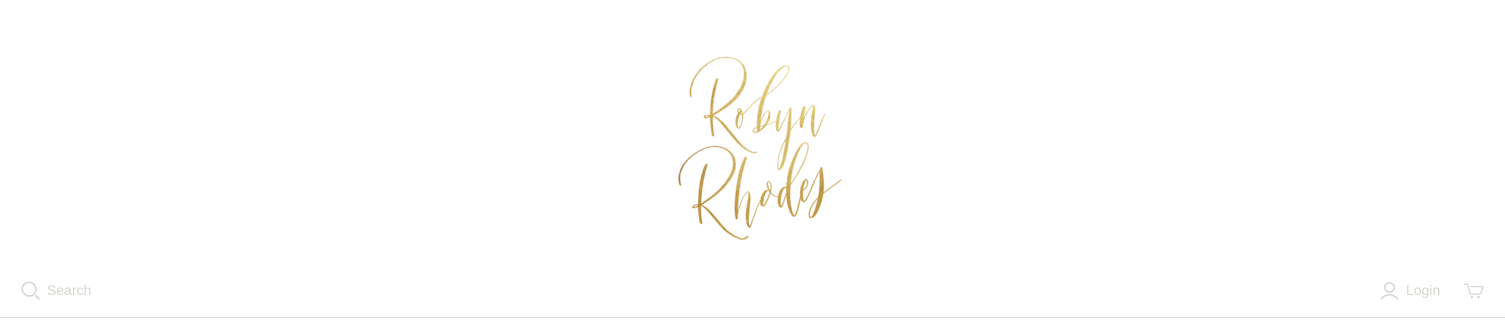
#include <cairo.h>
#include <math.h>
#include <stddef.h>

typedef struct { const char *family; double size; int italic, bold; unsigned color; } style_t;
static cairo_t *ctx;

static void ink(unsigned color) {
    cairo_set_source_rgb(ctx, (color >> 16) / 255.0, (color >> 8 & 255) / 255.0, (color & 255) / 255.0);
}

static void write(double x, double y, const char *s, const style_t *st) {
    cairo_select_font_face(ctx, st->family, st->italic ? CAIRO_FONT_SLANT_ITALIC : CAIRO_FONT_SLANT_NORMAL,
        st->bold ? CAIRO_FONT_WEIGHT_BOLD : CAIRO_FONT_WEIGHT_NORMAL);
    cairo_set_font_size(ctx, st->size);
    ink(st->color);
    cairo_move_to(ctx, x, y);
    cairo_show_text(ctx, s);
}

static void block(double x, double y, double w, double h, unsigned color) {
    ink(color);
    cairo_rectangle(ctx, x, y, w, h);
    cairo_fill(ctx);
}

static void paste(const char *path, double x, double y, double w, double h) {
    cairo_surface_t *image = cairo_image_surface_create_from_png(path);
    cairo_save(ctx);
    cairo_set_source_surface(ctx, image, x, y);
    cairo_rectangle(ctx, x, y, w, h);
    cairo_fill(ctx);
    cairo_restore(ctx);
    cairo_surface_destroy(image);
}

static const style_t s1 = {"Liberation Sans", 14, 0, 0, 0xd6d5cf};

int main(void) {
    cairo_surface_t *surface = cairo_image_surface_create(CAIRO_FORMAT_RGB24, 1505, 328);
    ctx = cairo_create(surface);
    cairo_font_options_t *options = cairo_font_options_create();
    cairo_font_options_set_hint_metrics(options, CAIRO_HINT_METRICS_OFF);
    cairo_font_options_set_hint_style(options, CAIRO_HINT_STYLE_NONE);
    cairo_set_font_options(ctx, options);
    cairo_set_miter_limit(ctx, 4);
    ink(0xffffff);
    cairo_paint(ctx);
    paste("pic1.png", 678, 56, 164, 184);
    paste("pic2.png", 21, 281, 19, 19);
    write(47, 295, "Search", &s1);
    paste("pic3.png", 1380, 282, 19, 18);
    write(1406, 295, "Login", &s1);
    paste("pic4.png", 1464, 283, 20, 16);
    block(0, 317, 1505, 1, 0xdddddd);
    cairo_surface_write_to_png(surface, "screenshot.png");
    cairo_font_options_destroy(options);
    cairo_destroy(ctx);
    cairo_surface_destroy(surface);
    return 0;
}
